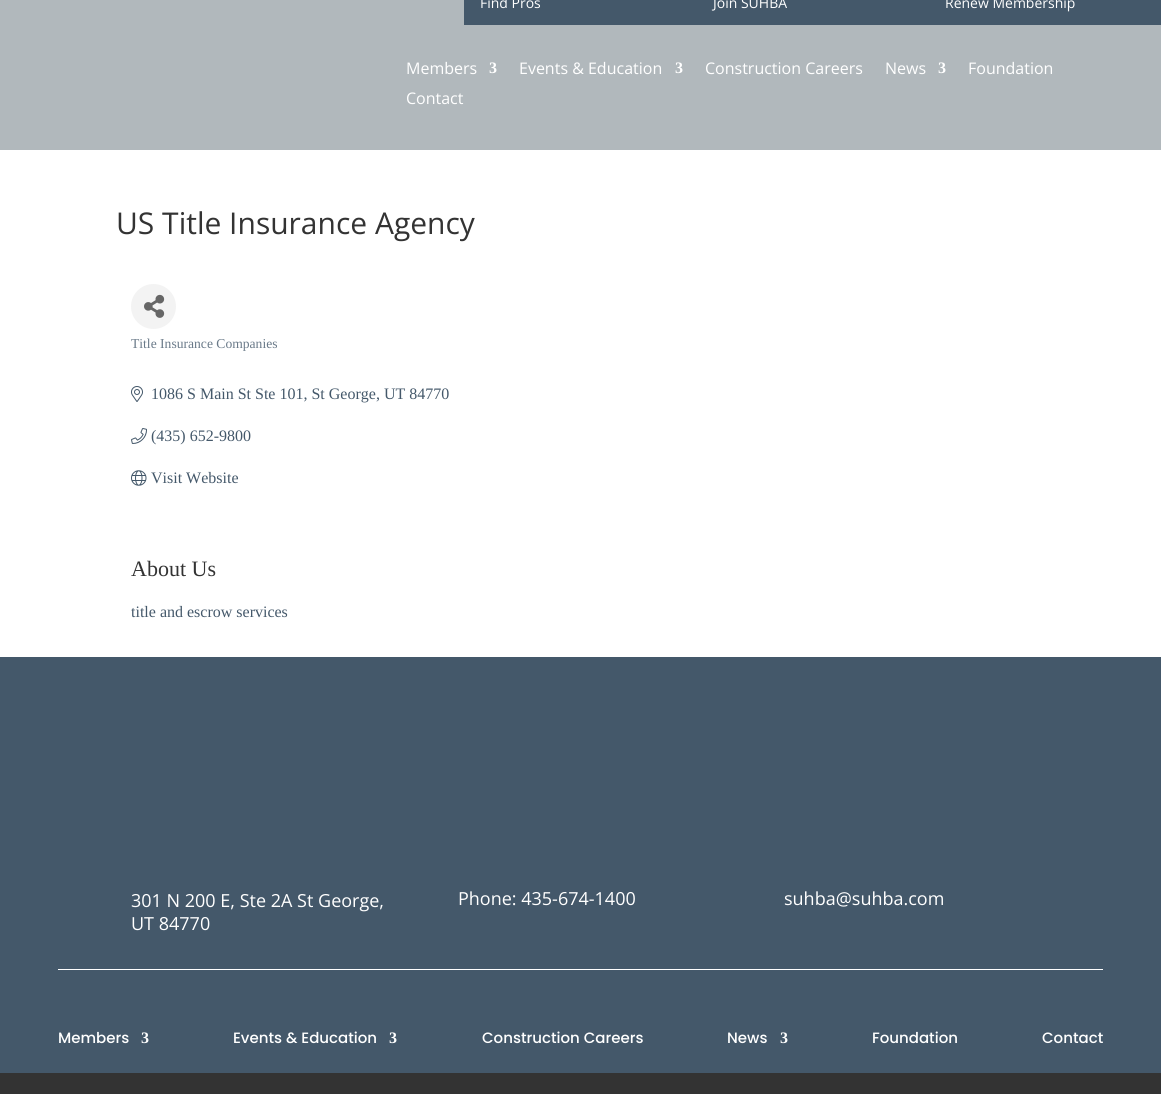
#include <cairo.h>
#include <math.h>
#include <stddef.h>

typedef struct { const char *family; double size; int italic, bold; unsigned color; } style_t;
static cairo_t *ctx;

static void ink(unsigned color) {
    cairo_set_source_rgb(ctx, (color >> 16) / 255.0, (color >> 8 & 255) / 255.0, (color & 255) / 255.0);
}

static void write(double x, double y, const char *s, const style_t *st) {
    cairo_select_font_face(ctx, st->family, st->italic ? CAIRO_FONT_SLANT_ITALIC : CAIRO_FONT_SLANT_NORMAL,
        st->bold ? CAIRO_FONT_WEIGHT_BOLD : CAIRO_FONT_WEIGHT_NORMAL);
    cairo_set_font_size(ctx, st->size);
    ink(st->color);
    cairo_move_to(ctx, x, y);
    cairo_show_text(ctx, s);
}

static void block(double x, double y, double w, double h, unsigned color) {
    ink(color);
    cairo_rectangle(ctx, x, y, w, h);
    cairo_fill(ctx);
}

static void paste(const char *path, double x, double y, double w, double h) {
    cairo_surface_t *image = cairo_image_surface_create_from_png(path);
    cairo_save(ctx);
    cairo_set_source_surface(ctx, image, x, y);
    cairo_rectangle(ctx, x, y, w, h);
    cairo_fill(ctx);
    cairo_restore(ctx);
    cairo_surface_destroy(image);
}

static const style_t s1 = {"Open Sans", 14, 0, 0, 0xffffff};
static const style_t s2 = {"Open Sans", 16, 0, 0, 0xffffff};
static const style_t s3 = {"Liberation Serif", 16, 0, 1, 0xffffff};
static const style_t s4 = {"Open Sans", 30, 0, 0, 0x333333};
static const style_t s5 = {"Liberation Serif", 13.6, 0, 0, 0x697988};
static const style_t s6 = {"Liberation Serif", 16, 0, 0, 0x44586a};
static const style_t s7 = {"Liberation Serif", 22, 0, 0, 0x333333};
static const style_t s8 = {"Open Sans", 18, 0, 0, 0xffffff};
static const style_t s9 = {"Poppins Medium", 15, 0, 0, 0xffffff};

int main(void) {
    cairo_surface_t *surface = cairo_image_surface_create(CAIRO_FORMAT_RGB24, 1161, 1094);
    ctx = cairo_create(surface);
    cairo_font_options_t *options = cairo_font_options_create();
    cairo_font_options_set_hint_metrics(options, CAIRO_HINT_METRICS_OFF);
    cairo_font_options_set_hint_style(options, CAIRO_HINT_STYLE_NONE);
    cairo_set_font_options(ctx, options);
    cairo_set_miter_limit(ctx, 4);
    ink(0xffffff);
    cairo_paint(ctx);
    block(0, 0, 1161, 150, 0xb1b8bc);
    block(464, 0, 697, 25, 0x44586a);
    write(480, 8, "Find Pros", &s1);
    write(713, 8, "Join SUHBA", &s1);
    write(945, 8, "Renew Membership", &s1);
    write(406, 74, "Members", &s2);
    write(489, 73, "3", &s3);
    write(519, 74, "Events & Education", &s2);
    write(675, 73, "3", &s3);
    write(705, 74, "Construction Careers", &s2);
    write(885, 74, "News", &s2);
    write(938, 73, "3", &s3);
    write(968, 74, "Foundation", &s2);
    write(406, 104, "Contact", &s2);
    write(116, 234, "US Title Insurance Agency", &s4);
    ink(0xf3f3f3);
    cairo_new_path(ctx);
    cairo_arc(ctx, 153.5, 306.5, 22.5, 0, 2 * M_PI);
    cairo_fill(ctx);
    paste("pic1.png", 144, 294, 21, 24);
    write(131, 348, "Title Insurance Companies", &s5);
    paste("pic2.png", 131, 386, 12, 16);
    write(151, 399, "1086 S Main St Ste 101, St George, UT 84770", &s6);
    paste("pic3.png", 131, 428, 16, 16);
    write(151, 441, "(435) 652-9800", &s6);
    paste("pic4.png", 131, 470, 16, 16);
    write(151, 483, "Visit Website", &s6);
    write(131, 576, "About Us", &s7);
    write(131, 617, "title and escrow services", &s6);
    block(0, 657, 1161, 416, 0x44586a);
    write(131, 907, "301 N 200 E, Ste 2A St George,", &s8);
    write(131, 930, "UT 84770", &s8);
    write(458, 905, "Phone: 435-674-1400", &s8);
    write(784, 905, "suhba@suhba.com", &s8);
    block(58, 969, 1045, 1, 0xffffff);
    write(58, 1043, "Members", &s9);
    write(141, 1043, "3", &s3);
    write(233, 1043, "Events & Education", &s9);
    write(389, 1043, "3", &s3);
    write(482, 1043, "Construction Careers", &s9);
    write(727, 1043, "News", &s9);
    write(780, 1043, "3", &s3);
    write(872, 1043, "Foundation", &s9);
    write(1042, 1043, "Contact", &s9);
    block(0, 1073, 1161, 21, 0x333333);
    cairo_surface_write_to_png(surface, "screenshot.png");
    cairo_font_options_destroy(options);
    cairo_destroy(ctx);
    cairo_surface_destroy(surface);
    return 0;
}
